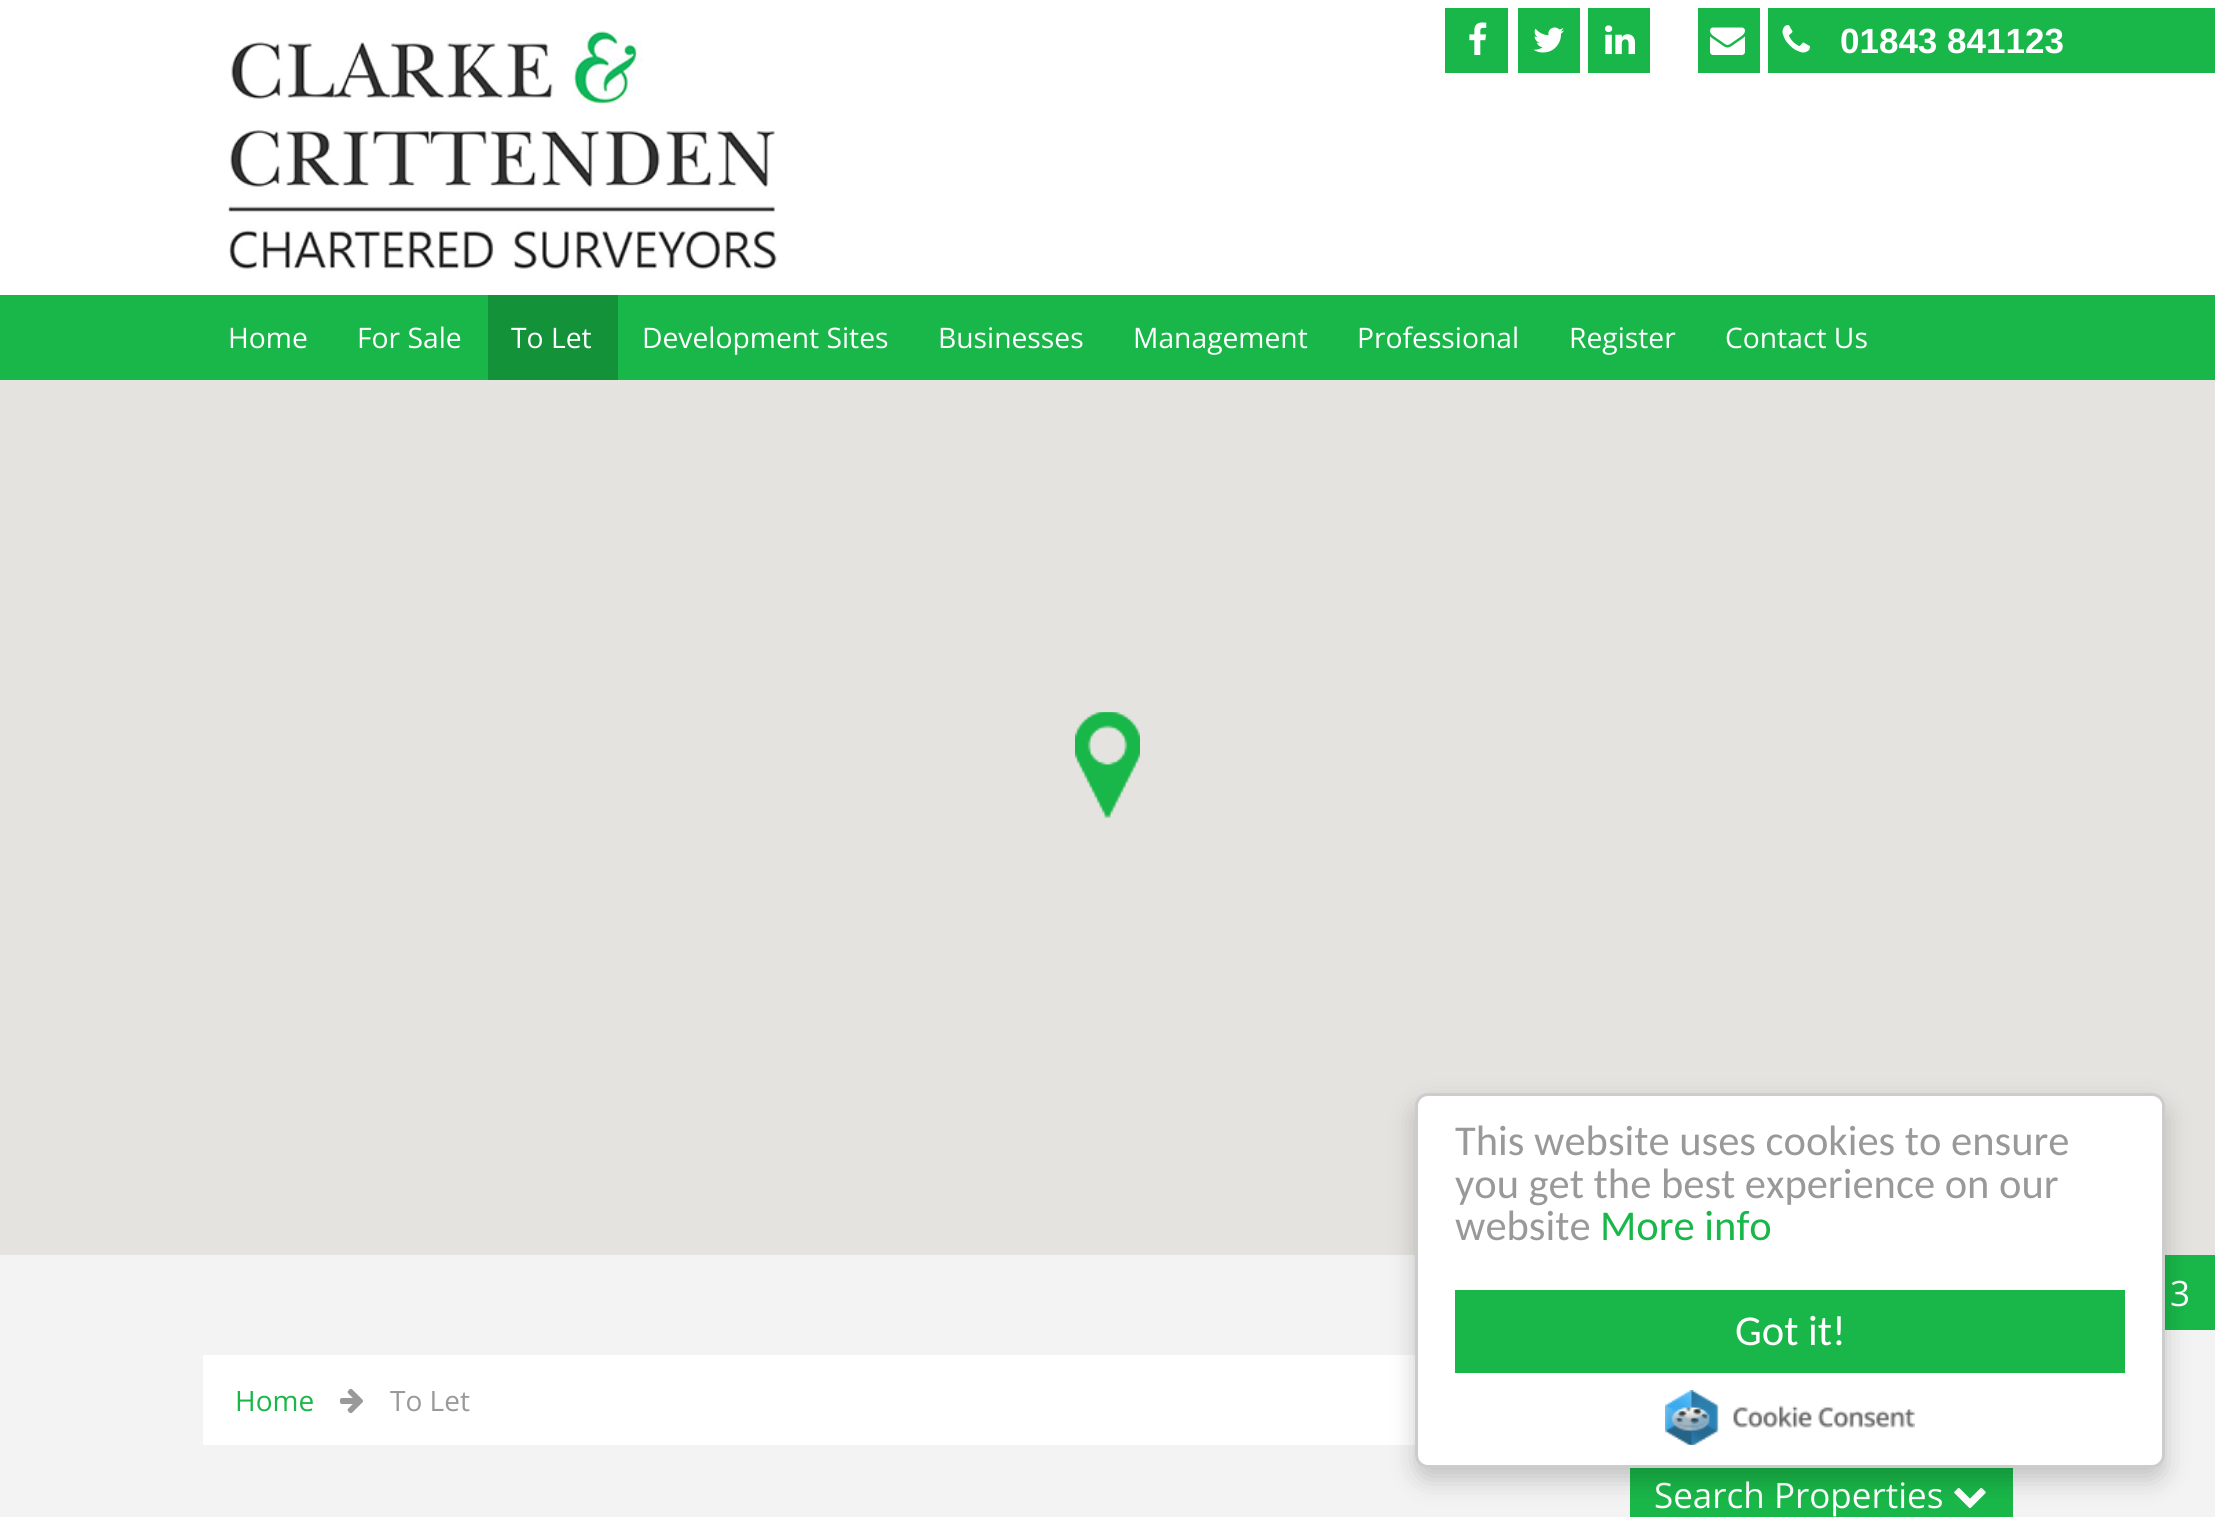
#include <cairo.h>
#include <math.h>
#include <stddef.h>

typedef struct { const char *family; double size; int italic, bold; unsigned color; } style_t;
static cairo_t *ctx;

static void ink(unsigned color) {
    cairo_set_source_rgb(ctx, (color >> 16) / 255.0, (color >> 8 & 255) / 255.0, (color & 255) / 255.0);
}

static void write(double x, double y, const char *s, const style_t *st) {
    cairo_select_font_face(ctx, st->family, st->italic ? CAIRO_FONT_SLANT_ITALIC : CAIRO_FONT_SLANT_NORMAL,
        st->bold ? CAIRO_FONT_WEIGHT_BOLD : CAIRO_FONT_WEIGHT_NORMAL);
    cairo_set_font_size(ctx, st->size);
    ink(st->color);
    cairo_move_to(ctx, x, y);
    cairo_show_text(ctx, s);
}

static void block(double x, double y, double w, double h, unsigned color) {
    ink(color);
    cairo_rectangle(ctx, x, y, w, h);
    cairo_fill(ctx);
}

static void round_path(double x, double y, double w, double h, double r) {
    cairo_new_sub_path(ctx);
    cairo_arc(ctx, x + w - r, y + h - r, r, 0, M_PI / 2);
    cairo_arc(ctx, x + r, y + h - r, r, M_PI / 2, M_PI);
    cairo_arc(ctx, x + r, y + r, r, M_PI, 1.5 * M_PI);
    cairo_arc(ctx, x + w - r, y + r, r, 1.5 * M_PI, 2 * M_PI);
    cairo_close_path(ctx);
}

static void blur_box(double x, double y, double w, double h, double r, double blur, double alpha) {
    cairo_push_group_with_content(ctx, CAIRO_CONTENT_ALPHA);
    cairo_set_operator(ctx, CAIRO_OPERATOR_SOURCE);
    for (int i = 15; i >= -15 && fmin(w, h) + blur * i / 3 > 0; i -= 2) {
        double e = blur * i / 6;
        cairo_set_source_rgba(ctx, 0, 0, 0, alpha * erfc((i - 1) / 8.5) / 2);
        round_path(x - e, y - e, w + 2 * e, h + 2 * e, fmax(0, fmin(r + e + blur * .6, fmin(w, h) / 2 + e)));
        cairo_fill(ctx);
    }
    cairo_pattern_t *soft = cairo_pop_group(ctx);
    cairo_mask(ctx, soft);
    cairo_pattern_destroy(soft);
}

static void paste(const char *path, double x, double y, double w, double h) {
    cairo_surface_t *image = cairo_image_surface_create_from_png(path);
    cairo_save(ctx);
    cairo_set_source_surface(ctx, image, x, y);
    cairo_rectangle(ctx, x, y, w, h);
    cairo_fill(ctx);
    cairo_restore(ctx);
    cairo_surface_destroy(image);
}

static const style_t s1 = {"Liberation Sans", 35, 0, 1, 0xffffff};
static const style_t s2 = {"Open Sans", 28.25, 0, 0, 0xffffff};
static const style_t s3 = {"Open Sans", 35, 0, 0, 0xffffff};
static const style_t s4 = {"Open Sans", 28, 0, 0, 0x19b749};
static const style_t s5 = {"Open Sans", 28, 0, 0, 0x999999};
static const style_t s6 = {"Carlito", 42.5, 0, 0, 0x999999};
static const style_t s7 = {"Carlito", 42.5, 0, 0, 0x19b749};
static const style_t s8 = {"Carlito", 42.5, 0, 0, 0xffffff};

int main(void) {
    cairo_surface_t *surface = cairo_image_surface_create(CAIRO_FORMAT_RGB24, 2215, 1517);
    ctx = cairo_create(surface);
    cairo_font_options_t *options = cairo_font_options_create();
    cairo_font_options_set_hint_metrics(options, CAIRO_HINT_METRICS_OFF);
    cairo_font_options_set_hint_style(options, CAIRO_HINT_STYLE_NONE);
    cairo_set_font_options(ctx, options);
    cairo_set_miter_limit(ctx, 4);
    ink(0x19b749);
    cairo_paint(ctx);
    block(0, 0, 2215, 295, 0xffffff);
    paste("pic1.png", 228, 31, 549, 238);
    block(1445, 8, 63, 65, 0x19b749);
    paste("pic2.png", 1469, 22, 18, 33);
    block(1518, 8, 62, 65, 0x19b749);
    paste("pic3.png", 1533, 27, 31, 26);
    block(1588, 8, 62, 65, 0x19b749);
    paste("pic4.png", 1605, 25, 30, 30);
    block(1698, 8, 62, 65, 0x19b749);
    paste("pic5.png", 1710, 27, 35, 28);
    block(1768, 8, 447, 65, 0x19b749);
    paste("pic6.png", 1782, 25, 28, 28);
    write(1840, 53, "01843 841123", &s1);
    write(228, 348, "Home", &s2);
    write(357, 348, "For Sale", &s2);
    block(488, 295, 130, 85, 0x14923a);
    write(511, 348, "To Let", &s2);
    write(642, 348, "Development Sites", &s2);
    write(938, 348, "Businesses", &s2);
    write(1133, 348, "Management", &s2);
    write(1357, 348, "Professional", &s2);
    write(1569, 348, "Register", &s2);
    write(1725, 348, "Contact Us", &s2);
    block(0, 1255, 2215, 262, 0xf3f3f3);
    block(0, 380, 2215, 875, 0xe5e3df);
    paste("pic7.png", 1075, 712, 65, 106);
    paste("pic8.png", 1075, 712, 65, 106);
    paste("pic9.png", 1075, 712, 65, 106);
    block(2165, 1255, 50, 75, 0x19b749);
    write(2170, 1306, "3", &s3);
    block(203, 1355, 1212, 90, 0xffffff);
    write(235, 1411, "Home", &s4);
    paste("pic10.png", 340, 1388, 23, 26);
    write(390, 1411, "To Let", &s5);
    block(1630, 1468, 383, 49, 0x19b749);
    write(1654, 1508, "Search Properties", &s3);
    paste("pic11.png", 1954, 1487, 32, 22);
    ink(0x000000);
    blur_box(1415, 1105, 750, 375, 13, 12.5, 0.2);
    ink(0xffffff);
    round_path(1416.5, 1094.5, 747, 372, 11.5);
    cairo_fill_preserve(ctx);
    ink(0xcccccc);
    cairo_set_line_width(ctx, 3);
    cairo_stroke(ctx);
    write(1455, 1155, "This website uses cookies to ensure", &s6);
    write(1455, 1198, "you get the best experience on our", &s6);
    write(1455, 1240, "website", &s6);
    write(1600, 1240, "More info", &s7);
    block(1455, 1290, 670, 83, 0x19b749);
    write(1735, 1345, "Got it!", &s8);
    paste("pic12.png", 1665, 1390, 250, 55);
    cairo_surface_write_to_png(surface, "screenshot.png");
    cairo_font_options_destroy(options);
    cairo_destroy(ctx);
    cairo_surface_destroy(surface);
    return 0;
}
